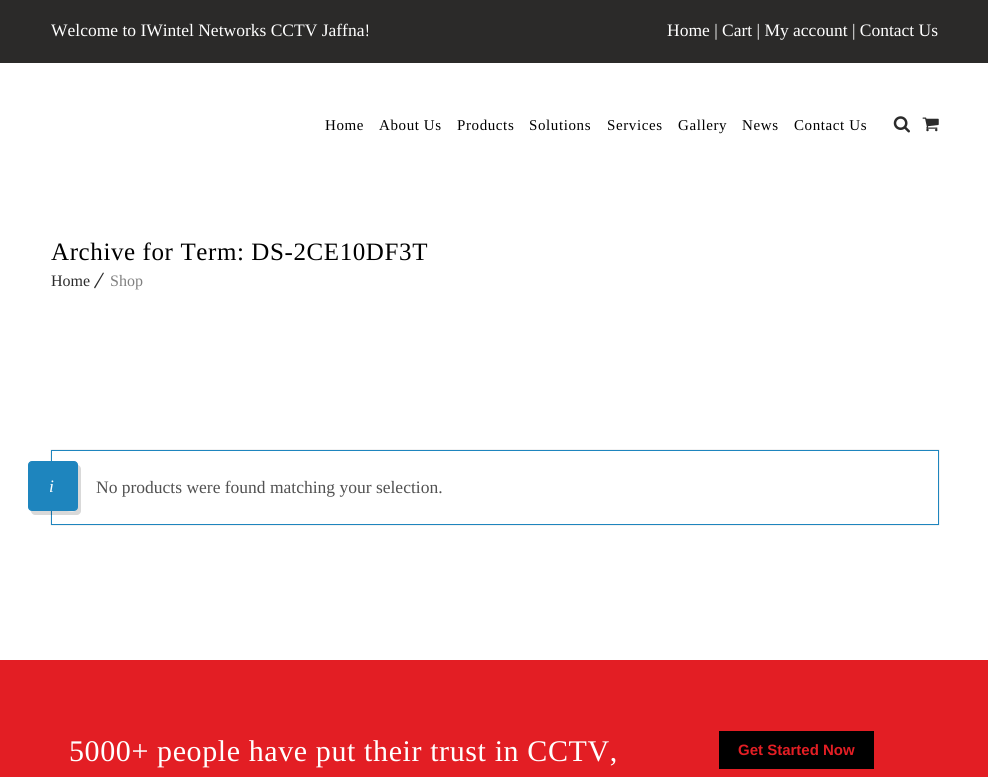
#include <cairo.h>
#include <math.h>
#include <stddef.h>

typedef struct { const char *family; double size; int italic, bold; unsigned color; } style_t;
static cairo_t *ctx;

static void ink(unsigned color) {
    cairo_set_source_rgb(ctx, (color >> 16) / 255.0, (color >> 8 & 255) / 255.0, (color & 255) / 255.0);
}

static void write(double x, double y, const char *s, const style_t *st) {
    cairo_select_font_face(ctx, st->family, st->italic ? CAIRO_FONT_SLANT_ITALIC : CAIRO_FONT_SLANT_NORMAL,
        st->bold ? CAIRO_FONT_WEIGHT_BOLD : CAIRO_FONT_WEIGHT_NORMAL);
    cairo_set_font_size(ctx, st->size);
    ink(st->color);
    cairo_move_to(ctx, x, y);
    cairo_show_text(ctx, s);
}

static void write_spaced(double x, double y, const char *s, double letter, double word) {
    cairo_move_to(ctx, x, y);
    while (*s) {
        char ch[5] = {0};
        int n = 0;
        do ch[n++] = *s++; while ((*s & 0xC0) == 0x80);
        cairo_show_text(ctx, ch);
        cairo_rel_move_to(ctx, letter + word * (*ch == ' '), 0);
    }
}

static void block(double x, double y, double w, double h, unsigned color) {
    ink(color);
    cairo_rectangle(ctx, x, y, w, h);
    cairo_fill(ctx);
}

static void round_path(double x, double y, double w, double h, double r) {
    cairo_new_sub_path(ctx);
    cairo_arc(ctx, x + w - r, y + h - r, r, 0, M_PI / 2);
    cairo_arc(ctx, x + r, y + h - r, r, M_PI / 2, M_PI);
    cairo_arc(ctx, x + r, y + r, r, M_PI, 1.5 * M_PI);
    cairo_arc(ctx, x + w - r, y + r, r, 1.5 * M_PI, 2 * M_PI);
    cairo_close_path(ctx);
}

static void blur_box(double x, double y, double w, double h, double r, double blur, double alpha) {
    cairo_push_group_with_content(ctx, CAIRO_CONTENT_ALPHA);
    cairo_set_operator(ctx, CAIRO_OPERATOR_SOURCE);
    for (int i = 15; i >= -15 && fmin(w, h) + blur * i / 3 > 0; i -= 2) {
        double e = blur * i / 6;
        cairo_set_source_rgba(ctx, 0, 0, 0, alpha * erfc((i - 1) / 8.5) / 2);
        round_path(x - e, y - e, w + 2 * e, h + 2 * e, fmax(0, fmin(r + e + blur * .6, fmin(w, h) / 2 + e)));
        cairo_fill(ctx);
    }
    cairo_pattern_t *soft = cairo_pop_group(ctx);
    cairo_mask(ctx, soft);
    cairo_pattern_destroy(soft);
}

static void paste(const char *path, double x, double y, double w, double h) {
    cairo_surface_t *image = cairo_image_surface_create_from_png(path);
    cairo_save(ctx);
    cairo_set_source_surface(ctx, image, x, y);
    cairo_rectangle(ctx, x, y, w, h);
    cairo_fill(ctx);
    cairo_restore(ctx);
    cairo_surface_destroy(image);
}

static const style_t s1 = {"Liberation Serif", 17.5, 0, 0, 0xffffff};
static const style_t s2 = {"Liberation Serif", 16, 0, 0, 0x2b2b2b};
static const style_t s3 = {"Liberation Serif", 16, 0, 0, 0x808080};
static const style_t s4 = {"Liberation Serif", 17.5, 1, 0, 0xffffff};
static const style_t s5 = {"Liberation Serif", 17.5, 0, 0, 0x515151};
static const style_t s6 = {"Liberation Sans", 15, 0, 1, 0xe31e24};

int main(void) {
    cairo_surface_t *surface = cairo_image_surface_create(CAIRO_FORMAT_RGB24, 988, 777);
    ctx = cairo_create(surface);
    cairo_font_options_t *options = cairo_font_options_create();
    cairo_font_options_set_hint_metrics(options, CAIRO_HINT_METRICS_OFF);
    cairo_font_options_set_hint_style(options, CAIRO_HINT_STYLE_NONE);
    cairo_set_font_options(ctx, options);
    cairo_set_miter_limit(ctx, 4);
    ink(0xffffff);
    cairo_paint(ctx);
    block(0, 0, 988, 63, 0x2b2a29);
    write(51, 36, "Welcome to IWintel Networks CCTV Jaffna!", &s1);
    write(667, 36, "Home | Cart | My account | Contact Us", &s1);
    cairo_set_font_size(ctx, 15);
    ink(0x000000);
    write_spaced(325, 130, "Home", 0.6, 0);
    write_spaced(379, 130, "About Us", 0.6, 0);
    write_spaced(457, 130, "Products", 0.6, 0);
    write_spaced(529, 130, "Solutions", 0.6, 0);
    write_spaced(607, 130, "Services", 0.6, 0);
    write_spaced(678, 130, "Gallery", 0.6, 0);
    write_spaced(742, 130, "News", 0.6, 0);
    write_spaced(794, 130, "Contact Us", 0.6, 0);
    paste("pic1.png", 893, 116, 17, 17);
    paste("pic2.png", 922, 117, 17, 15);
    cairo_set_font_size(ctx, 25);
    write_spaced(51, 260, "Archive for Term: DS-2CE10DF3T", 0.6, 0);
    write(51, 286, "Home", &s2);
    cairo_new_path(ctx);
    cairo_move_to(ctx, 103, 272.5);
    cairo_line_to(ctx, 104, 273);
    cairo_line_to(ctx, 95, 288.5);
    cairo_line_to(ctx, 94, 287.5);
    cairo_close_path(ctx);
    cairo_fill(ctx);
    write(110, 286, "Shop", &s3);
    ink(0x000000);
    blur_box(51, 450, 888, 75, 0, 0.5, 0.2);
    ink(0xffffff);
    cairo_rectangle(ctx, 51.5, 450.5, 887, 74);
    cairo_fill_preserve(ctx);
    ink(0x1e85be);
    cairo_set_line_width(ctx, 1);
    cairo_stroke(ctx);
    cairo_set_source_rgba(ctx, 0, 0, 0, 0.15);
    cairo_new_path(ctx);
    cairo_move_to(ctx, 31, 511);
    cairo_curve_to(ctx, 31, 513, 33, 515, 35, 515);
    cairo_line_to(ctx, 77, 515);
    cairo_curve_to(ctx, 79, 515, 81, 513, 81, 511);
    cairo_line_to(ctx, 81, 469);
    cairo_curve_to(ctx, 81, 467, 79, 465, 78, 465);
    cairo_line_to(ctx, 77, 508);
    cairo_curve_to(ctx, 77, 513, 69, 511, 67, 511);
    cairo_close_path(ctx);
    cairo_fill(ctx);
    ink(0x1e85be);
    round_path(28.5, 461.5, 49, 49, 3.5);
    cairo_fill_preserve(ctx);
    cairo_stroke(ctx);
    write(49, 492, "i", &s4);
    write(96, 493, "No products were found matching your selection.", &s5);
    block(0, 660, 988, 117, 0xe31e24);
    cairo_set_font_size(ctx, 30);
    ink(0xffffff);
    write_spaced(69, 761, "5000+ people have put their trust in CCTV,", 0.6, 0);
    block(719, 731, 155, 38, 0x000000);
    write(738, 755, "Get Started Now", &s6);
    cairo_surface_write_to_png(surface, "screenshot.png");
    cairo_font_options_destroy(options);
    cairo_destroy(ctx);
    cairo_surface_destroy(surface);
    return 0;
}
